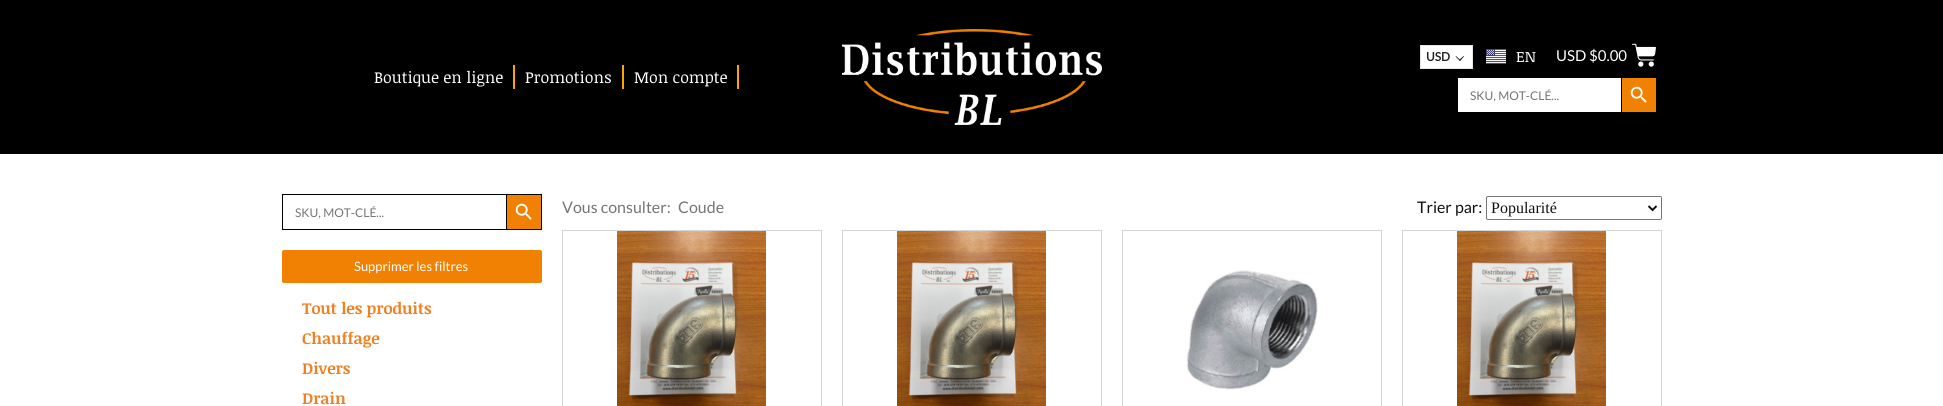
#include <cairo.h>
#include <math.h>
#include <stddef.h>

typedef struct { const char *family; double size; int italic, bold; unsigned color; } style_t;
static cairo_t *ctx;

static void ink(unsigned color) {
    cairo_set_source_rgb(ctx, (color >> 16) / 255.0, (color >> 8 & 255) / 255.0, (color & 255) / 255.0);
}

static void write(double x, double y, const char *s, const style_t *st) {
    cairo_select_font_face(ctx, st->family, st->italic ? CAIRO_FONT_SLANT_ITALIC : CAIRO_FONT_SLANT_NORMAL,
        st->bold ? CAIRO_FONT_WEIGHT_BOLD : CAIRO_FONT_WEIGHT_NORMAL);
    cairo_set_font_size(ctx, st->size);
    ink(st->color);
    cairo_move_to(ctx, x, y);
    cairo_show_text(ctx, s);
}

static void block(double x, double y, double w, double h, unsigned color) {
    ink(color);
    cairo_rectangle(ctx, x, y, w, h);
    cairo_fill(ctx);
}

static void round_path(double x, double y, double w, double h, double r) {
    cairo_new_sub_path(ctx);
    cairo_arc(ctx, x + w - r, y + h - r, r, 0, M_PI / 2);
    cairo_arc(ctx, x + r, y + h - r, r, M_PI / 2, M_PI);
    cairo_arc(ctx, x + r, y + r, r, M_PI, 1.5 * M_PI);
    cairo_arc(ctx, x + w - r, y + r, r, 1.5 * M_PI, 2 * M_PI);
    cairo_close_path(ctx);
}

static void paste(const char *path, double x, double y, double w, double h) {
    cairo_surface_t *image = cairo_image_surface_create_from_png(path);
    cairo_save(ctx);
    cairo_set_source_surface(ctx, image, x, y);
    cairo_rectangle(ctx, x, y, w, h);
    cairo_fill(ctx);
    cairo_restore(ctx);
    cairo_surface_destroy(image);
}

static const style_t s1 = {"Noticia Text", 16, 0, 0, 0xffffff};
static const style_t s2 = {"Lato", 12, 0, 1, 0x212121};
static const style_t s3 = {"Noticia Text", 15, 0, 0, 0xffffff};
static const style_t s4 = {"Lato", 15, 0, 0, 0xffffff};
static const style_t s5 = {"Lato", 12, 0, 0, 0x757575};
static const style_t s6 = {"Lato", 13, 0, 0, 0xffffff};
static const style_t s7 = {"Noticia Text", 16, 0, 1, 0xef8123};
static const style_t s8 = {"Lato", 16, 0, 0, 0x757575};
static const style_t s9 = {"Lato", 16, 0, 0, 0x111111};
static const style_t s10 = {"Liberation Serif", 16, 0, 0, 0x111111};

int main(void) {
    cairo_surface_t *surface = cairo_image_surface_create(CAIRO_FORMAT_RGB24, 1943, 406);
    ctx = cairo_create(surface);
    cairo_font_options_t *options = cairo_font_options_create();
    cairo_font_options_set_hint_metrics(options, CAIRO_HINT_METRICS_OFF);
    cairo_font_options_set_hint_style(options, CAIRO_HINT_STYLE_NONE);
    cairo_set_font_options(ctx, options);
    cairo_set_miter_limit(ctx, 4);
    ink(0xffffff);
    cairo_paint(ctx);
    block(0, 0, 1943, 154, 0x000000);
    block(513, 65, 2, 24, 0xffa500);
    write(374, 83, "Boutique en ligne", &s1);
    block(622, 65, 2, 24, 0xffa500);
    write(525, 83, "Promotions", &s1);
    block(737, 65, 2, 24, 0xffa500);
    write(634, 83, "Mon compte", &s1);
    paste("pic1.png", 842, 29, 260, 96);
    cairo_rectangle(ctx, 1420.5, 45.5, 52, 23);
    cairo_fill_preserve(ctx);
    ink(0xe5e5e5);
    cairo_set_line_width(ctx, 1);
    cairo_stroke(ctx);
    write(1426, 61, "USD", &s2);
    cairo_new_path(ctx);
    cairo_move_to(ctx, 1463.5, 56);
    cairo_line_to(ctx, 1464, 56.5);
    cairo_line_to(ctx, 1460, 61);
    cairo_line_to(ctx, 1459, 60);
    cairo_close_path(ctx);
    cairo_fill(ctx);
    cairo_new_path(ctx);
    cairo_move_to(ctx, 1456, 56);
    cairo_line_to(ctx, 1460.5, 60);
    cairo_line_to(ctx, 1460, 61);
    cairo_line_to(ctx, 1455.5, 56.5);
    cairo_close_path(ctx);
    cairo_fill(ctx);
    paste("pic2.png", 1486, 49, 20, 15);
    write(1516, 62, "EN", &s3);
    write(1556, 61, "USD $0.00", &s4);
    paste("pic3.png", 1632, 43, 24, 24);
    block(1458, 78, 163, 34, 0xffffff);
    write(1470, 100, "SKU, MOT-CLÉ...", &s5);
    block(1622, 78, 34, 34, 0xf18103);
    paste("pic4.png", 1630, 86, 17, 17);
    block(282, 194, 224, 1, 0x000000);
    block(282, 229, 224, 1, 0x000000);
    block(282, 194, 1, 36, 0x000000);
    write(295, 217, "SKU, MOT-CLÉ...", &s5);
    ink(0xf18103);
    cairo_rectangle(ctx, 506.5, 194.5, 35, 35);
    cairo_fill_preserve(ctx);
    ink(0x000000);
    cairo_stroke(ctx);
    paste("pic4.png", 515, 203, 17, 17);
    ink(0xf18103);
    round_path(282, 250, 260, 33, 2);
    cairo_fill(ctx);
    write(354, 271, "Supprimer les filtres", &s6);
    write(302, 314, "Tout les produits", &s7);
    write(302, 344, "Chauffage", &s7);
    write(302, 374, "Divers", &s7);
    write(302, 404, "Drain", &s7);
    write(562, 213, "Vous consulter:", &s8);
    write(678, 213, "Coude", &s8);
    write(1417, 213, "Trier par:", &s9);
    round_path(1486.5, 196.5, 175, 23, 1.5);
    ink(0x767676);
    cairo_stroke(ctx);
    cairo_new_path(ctx);
    cairo_move_to(ctx, 1648.5, 206);
    cairo_line_to(ctx, 1652.5, 210);
    cairo_line_to(ctx, 1656.5, 206);
    ink(0x111111);
    cairo_set_line_width(ctx, 2);
    cairo_stroke(ctx);
    write(1491, 213, "Popularité", &s10);
    cairo_rectangle(ctx, 562.5, 230.5, 259, 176);
    ink(0xd6d6d6);
    cairo_set_line_width(ctx, 1);
    cairo_stroke(ctx);
    paste("pic5.png", 617, 231, 149, 175);
    cairo_rectangle(ctx, 842.5, 230.5, 259, 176);
    cairo_stroke(ctx);
    paste("pic6.png", 897, 231, 149, 175);
    cairo_rectangle(ctx, 1122.5, 230.5, 259, 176);
    cairo_stroke(ctx);
    paste("pic7.png", 1186, 270, 132, 120);
    cairo_rectangle(ctx, 1402.5, 230.5, 259, 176);
    cairo_stroke(ctx);
    paste("pic5.png", 1457, 231, 149, 175);
    cairo_surface_write_to_png(surface, "screenshot.png");
    cairo_font_options_destroy(options);
    cairo_destroy(ctx);
    cairo_surface_destroy(surface);
    return 0;
}
